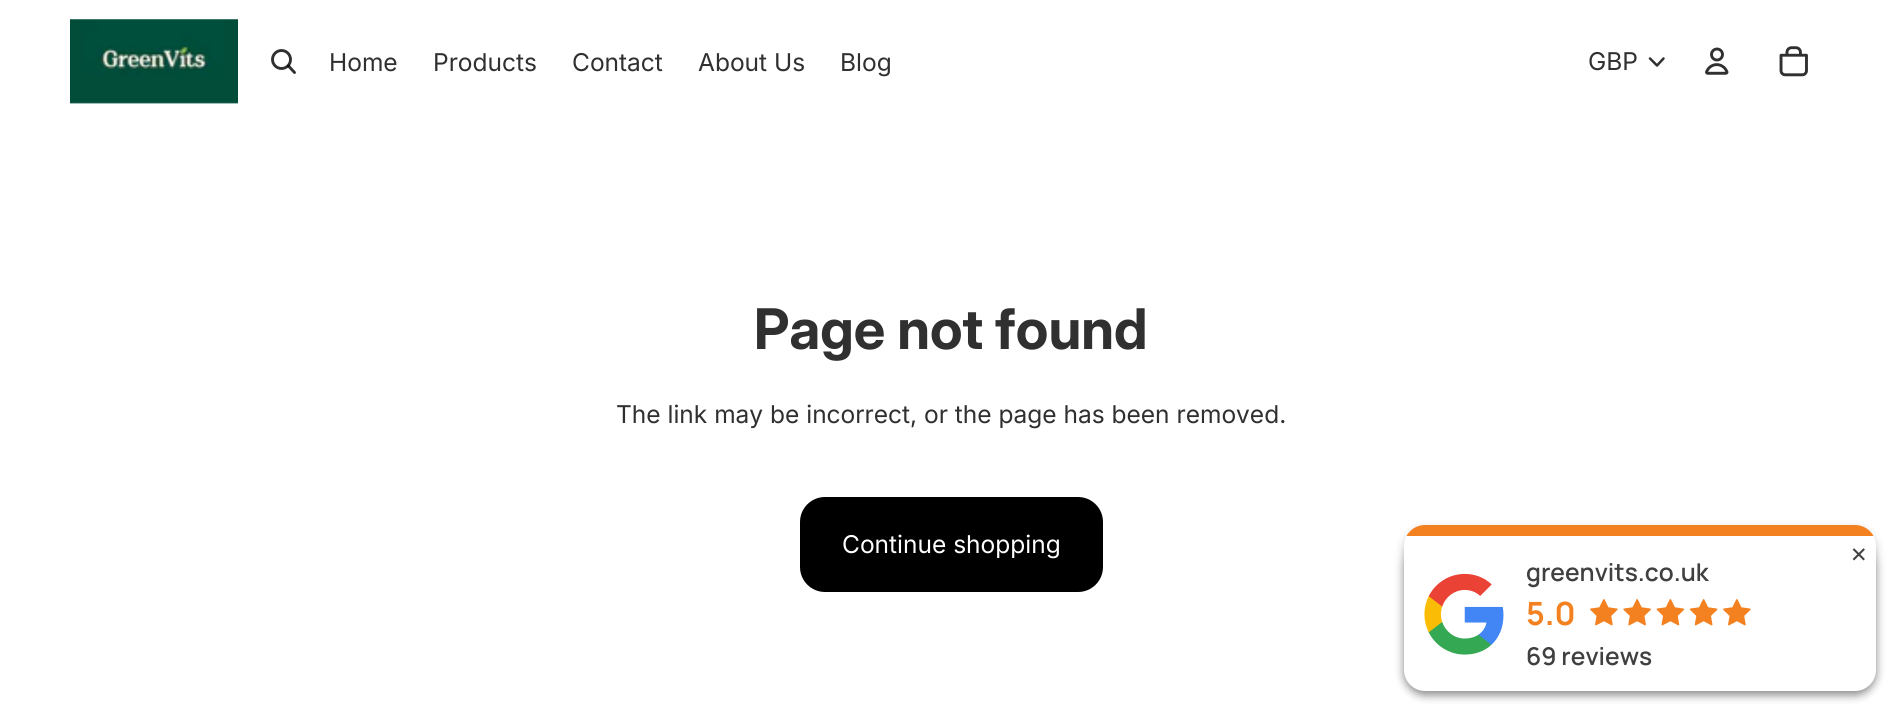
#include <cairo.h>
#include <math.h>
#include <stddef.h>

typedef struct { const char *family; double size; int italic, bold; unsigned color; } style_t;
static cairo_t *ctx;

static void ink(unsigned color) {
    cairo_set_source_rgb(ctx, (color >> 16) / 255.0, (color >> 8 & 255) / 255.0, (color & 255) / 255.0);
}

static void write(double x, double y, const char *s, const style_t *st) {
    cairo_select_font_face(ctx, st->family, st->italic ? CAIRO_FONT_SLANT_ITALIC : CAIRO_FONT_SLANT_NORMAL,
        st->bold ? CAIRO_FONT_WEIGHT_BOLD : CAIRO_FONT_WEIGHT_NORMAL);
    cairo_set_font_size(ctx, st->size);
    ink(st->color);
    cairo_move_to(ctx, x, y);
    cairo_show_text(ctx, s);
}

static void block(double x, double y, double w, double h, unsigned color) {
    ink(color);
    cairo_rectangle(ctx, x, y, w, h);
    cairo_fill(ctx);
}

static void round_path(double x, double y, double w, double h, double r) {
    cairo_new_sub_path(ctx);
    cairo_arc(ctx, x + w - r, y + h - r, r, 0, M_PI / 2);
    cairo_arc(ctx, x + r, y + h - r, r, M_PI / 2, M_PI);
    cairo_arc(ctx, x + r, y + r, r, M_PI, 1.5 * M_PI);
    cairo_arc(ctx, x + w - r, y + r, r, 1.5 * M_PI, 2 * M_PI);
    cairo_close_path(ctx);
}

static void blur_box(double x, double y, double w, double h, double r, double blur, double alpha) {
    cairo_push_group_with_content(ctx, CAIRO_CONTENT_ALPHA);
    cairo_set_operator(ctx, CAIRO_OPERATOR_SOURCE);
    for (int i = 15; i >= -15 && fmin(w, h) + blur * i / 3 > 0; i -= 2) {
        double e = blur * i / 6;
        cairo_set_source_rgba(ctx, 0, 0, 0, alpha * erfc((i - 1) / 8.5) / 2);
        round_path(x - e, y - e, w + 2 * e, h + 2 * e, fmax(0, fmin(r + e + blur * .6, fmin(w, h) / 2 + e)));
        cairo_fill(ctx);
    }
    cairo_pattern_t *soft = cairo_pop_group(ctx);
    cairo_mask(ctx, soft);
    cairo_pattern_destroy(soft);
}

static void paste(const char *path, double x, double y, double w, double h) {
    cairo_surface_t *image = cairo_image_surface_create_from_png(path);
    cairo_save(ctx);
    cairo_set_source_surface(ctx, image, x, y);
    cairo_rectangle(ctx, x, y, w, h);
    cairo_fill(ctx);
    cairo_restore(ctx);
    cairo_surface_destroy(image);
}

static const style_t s1 = {"Inter", 24.5, 0, 0, 0x303030};
static const style_t s2 = {"Inter", 56, 0, 1, 0x303030};
static const style_t s3 = {"Inter", 24.5, 0, 0, 0xffffff};
static const style_t s4 = {"DejaVu Sans", 21, 0, 0, 0x404040};
static const style_t s5 = {"Manrope SemiBold", 24.5, 0, 0, 0x404040};
static const style_t s6 = {"Manrope", 32, 0, 1, 0xf48120};

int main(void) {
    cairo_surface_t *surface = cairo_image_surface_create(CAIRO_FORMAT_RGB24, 1902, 717);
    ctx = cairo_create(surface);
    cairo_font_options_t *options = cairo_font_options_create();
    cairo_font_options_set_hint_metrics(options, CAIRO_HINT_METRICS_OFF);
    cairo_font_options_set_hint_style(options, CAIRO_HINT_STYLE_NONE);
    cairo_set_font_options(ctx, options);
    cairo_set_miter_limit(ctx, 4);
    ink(0xffffff);
    cairo_paint(ctx);
    paste("pic1.png", 70, 19, 168, 85);
    cairo_arc(ctx, 281.5, 59.5, 9, 0, 2 * M_PI);
    ink(0x303030);
    cairo_set_line_width(ctx, 2.9);
    cairo_stroke(ctx);
    cairo_new_path(ctx);
    cairo_move_to(ctx, 288.5, 66);
    cairo_line_to(ctx, 294.5, 72.5);
    cairo_set_source_rgba(ctx, 0, 0, 0, 0.81);
    cairo_set_line_cap(ctx, CAIRO_LINE_CAP_ROUND);
    cairo_set_line_join(ctx, CAIRO_LINE_JOIN_ROUND);
    cairo_stroke(ctx);
    write(329, 71, "Home", &s1);
    write(433, 71, "Products", &s1);
    write(572, 71, "Contact", &s1);
    write(698, 71, "About Us", &s1);
    write(840, 71, "Blog", &s1);
    write(1588, 70, "GBP", &s1);
    cairo_new_path(ctx);
    cairo_move_to(ctx, 1663.5, 58.5);
    cairo_line_to(ctx, 1657, 65.5);
    cairo_line_to(ctx, 1650, 58.5);
    cairo_set_line_width(ctx, 2.5);
    cairo_stroke(ctx);
    paste("pic2.png", 1705, 47, 24, 28);
    paste("pic3.png", 1779, 46, 29, 31);
    write(754, 349, "Page not found", &s2);
    write(616, 423, "The link may be incorrect, or the page has been removed.", &s1);
    ink(0x000000);
    round_path(800, 497, 303, 95, 25);
    cairo_fill(ctx);
    write(842, 553, "Continue shopping", &s3);
    ink(0x000000);
    blur_box(1404, 546, 472, 149, 21, 4.5, 0.26);
    blur_box(1404, 529, 472, 166, 21, 4.5, 0.26);
    cairo_save(ctx);
    round_path(1404, 525, 472, 166, 21);
    cairo_clip(ctx);
    block(1406, 525, 468, 11, 0xf48120);
    ink(0xffffff);
    cairo_new_path(ctx);
    cairo_move_to(ctx, 1404, 536);
    cairo_line_to(ctx, 1876, 536);
    cairo_line_to(ctx, 1876, 670);
    cairo_curve_to(ctx, 1876, 681.5, 1866.5, 691, 1855, 691);
    cairo_line_to(ctx, 1425, 691);
    cairo_curve_to(ctx, 1413.5, 691, 1404, 681.5, 1404, 670);
    cairo_close_path(ctx);
    cairo_fill(ctx);
    cairo_restore(ctx);
    write(1850, 562, "✕", &s4);
    paste("pic4.png", 1424, 573, 80, 82);
    write(1526, 581, "greenvits.co.uk", &s5);
    write(1526, 625, "5.0", &s6);
    paste("pic5.png", 1590, 599, 28, 27);
    paste("pic6.png", 1623, 599, 28, 27);
    paste("pic7.png", 1656, 599, 29, 27);
    paste("pic8.png", 1689, 599, 29, 27);
    paste("pic5.png", 1723, 599, 28, 27);
    write(1526, 665, "69 reviews", &s5);
    cairo_surface_write_to_png(surface, "screenshot.png");
    cairo_font_options_destroy(options);
    cairo_destroy(ctx);
    cairo_surface_destroy(surface);
    return 0;
}
